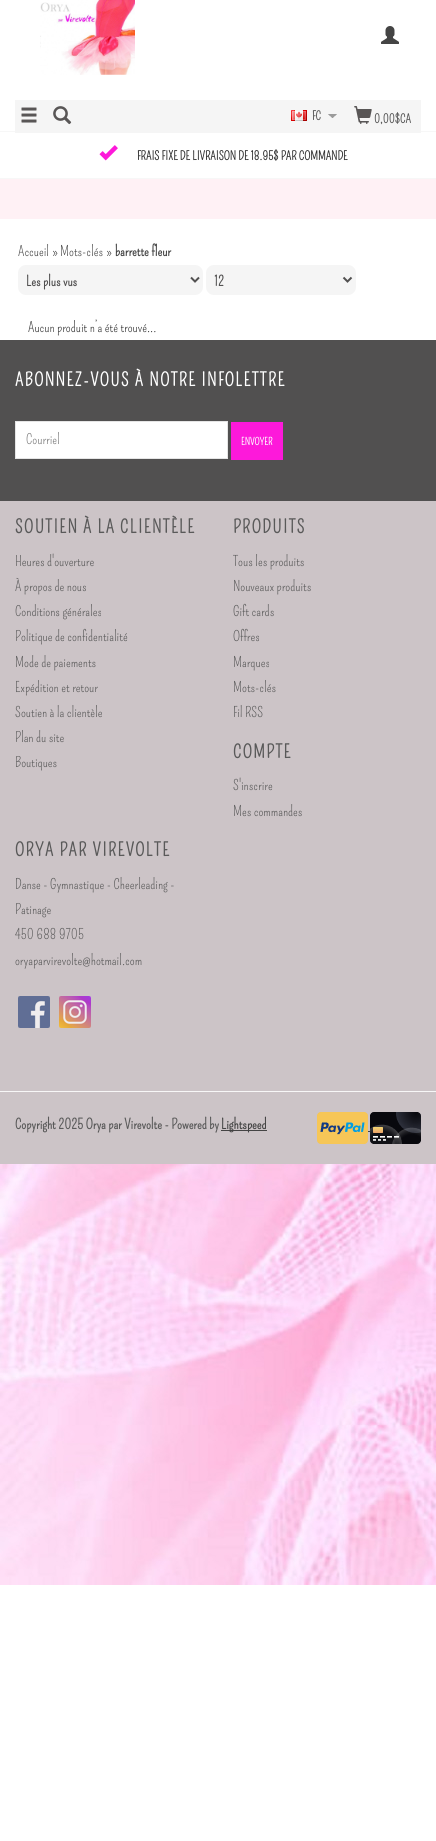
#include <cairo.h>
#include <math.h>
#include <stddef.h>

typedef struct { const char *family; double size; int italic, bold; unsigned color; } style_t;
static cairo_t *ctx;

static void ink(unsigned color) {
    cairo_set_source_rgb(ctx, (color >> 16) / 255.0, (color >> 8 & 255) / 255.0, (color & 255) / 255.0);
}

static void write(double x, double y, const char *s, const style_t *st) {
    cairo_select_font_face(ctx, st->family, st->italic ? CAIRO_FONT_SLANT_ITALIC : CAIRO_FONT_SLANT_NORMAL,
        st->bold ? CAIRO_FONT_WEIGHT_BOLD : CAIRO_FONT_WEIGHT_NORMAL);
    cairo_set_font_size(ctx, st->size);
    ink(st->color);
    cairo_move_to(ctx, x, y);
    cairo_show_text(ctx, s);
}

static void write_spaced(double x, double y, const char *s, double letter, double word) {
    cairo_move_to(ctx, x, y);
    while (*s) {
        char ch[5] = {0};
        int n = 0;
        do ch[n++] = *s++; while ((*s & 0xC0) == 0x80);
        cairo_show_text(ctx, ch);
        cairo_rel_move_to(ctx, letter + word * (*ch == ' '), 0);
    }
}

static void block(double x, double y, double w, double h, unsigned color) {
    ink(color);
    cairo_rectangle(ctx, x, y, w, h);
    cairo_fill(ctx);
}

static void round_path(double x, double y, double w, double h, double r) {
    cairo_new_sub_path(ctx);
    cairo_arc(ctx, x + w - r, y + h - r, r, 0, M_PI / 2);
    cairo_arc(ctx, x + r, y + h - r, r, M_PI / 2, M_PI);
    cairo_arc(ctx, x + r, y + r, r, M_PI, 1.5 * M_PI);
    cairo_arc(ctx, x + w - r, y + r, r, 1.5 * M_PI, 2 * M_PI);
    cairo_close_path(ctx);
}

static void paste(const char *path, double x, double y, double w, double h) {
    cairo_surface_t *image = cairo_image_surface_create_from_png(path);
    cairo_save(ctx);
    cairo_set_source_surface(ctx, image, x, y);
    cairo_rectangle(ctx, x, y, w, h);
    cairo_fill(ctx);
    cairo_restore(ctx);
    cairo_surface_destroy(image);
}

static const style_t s1 = {"Pompiere", 12, 0, 1, 0x595959};
static const style_t s2 = {"Pompiere", 12, 0, 1, 0x333333};
static const style_t s3 = {"Pompiere", 14, 0, 0, 0x444444};
static const style_t s4 = {"Pompiere", 14, 0, 0, 0x333333};
static const style_t s5 = {"Pompiere", 14, 0, 1, 0x444444};
static const style_t s6 = {"Pompiere", 14, 0, 1, 0x515050};
static const style_t s7 = {"Pompiere", 14, 0, 0, 0x757575};
static const style_t s8 = {"Pompiere", 10, 0, 1, 0xffffff};
static const style_t s9 = {"Pompiere", 14, 0, 0, 0x595959};
static const style_t s10 = {"Pompiere", 14, 0, 1, 0x595959};

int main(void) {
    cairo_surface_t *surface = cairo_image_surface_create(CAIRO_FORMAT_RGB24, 436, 1841);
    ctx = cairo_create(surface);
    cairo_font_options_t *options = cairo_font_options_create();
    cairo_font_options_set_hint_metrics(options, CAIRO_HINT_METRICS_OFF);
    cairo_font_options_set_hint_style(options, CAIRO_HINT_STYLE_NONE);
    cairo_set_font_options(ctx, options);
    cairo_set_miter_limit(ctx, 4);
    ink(0xffffff);
    cairo_paint(ctx);
    paste("pic1.png", 0, 1164, 436, 421);
    block(0, 131, 436, 1, 0xf7f7f7);
    paste("pic2.png", 40, 0, 95, 75);
    paste("pic3.png", 381, 26, 18, 18);
    block(15, 100, 406, 33, 0xf5f5f5);
    paste("pic4.png", 21, 107, 16, 16);
    paste("pic5.png", 53, 106, 19, 19);
    paste("pic6.png", 328, 114, 9, 4);
    paste("pic7.png", 291, 110, 16, 11);
    write(312, 120, "FC", &s1);
    paste("pic8.png", 354, 106, 18, 18);
    write(374, 123, "0,00$CA", &s1);
    block(0, 178, 436, 1, 0xf7f7f7);
    paste("pic9.png", 99, 145, 19, 16);
    write(137, 160, "FRAIS FIXE DE LIVRAISON DE 18.95$ PAR COMMANDE", &s2);
    block(0, 179, 436, 40, 0xfff1f5);
    write(18, 256, "Accueil", &s3);
    write(52, 256, "»", &s4);
    write(60, 256, "Mots-clés", &s3);
    write(106, 256, "»", &s4);
    write(115, 256, "barrette fleur", &s5);
    ink(0xf5f5f5);
    round_path(18, 265, 185, 30, 8);
    cairo_fill(ctx);
    cairo_new_path(ctx);
    cairo_move_to(ctx, 191, 277.5);
    cairo_line_to(ctx, 195, 281.5);
    cairo_line_to(ctx, 199, 277.5);
    ink(0x515050);
    cairo_stroke(ctx);
    write(26, 286, "Les plus vus", &s6);
    ink(0xf5f5f5);
    round_path(206, 265, 150, 30, 8);
    cairo_fill(ctx);
    cairo_new_path(ctx);
    cairo_move_to(ctx, 343.5, 277.5);
    cairo_line_to(ctx, 347.5, 281.5);
    cairo_line_to(ctx, 351.5, 277.5);
    ink(0x515050);
    cairo_stroke(ctx);
    write(214, 286, "12", &s6);
    write(28, 332, "Aucun produit n’a été trouvé...", &s4);
    block(0, 340, 436, 161, 0x515050);
    cairo_select_font_face(ctx, "Pompiere", CAIRO_FONT_SLANT_NORMAL, CAIRO_FONT_WEIGHT_BOLD);
    cairo_set_font_size(ctx, 18);
    ink(0xffffff);
    write_spaced(15, 386, "ABONNEZ-VOUS À NOTRE INFOLETTRE", 1.5, 0);
    cairo_rectangle(ctx, 15.5, 421.5, 212, 37);
    cairo_fill_preserve(ctx);
    ink(0xe5e5e5);
    cairo_set_line_width(ctx, 1);
    cairo_stroke(ctx);
    write(26, 444, "Courriel", &s7);
    block(231, 422, 52, 38, 0xfd19da);
    write(241, 445, "ENVOYER", &s8);
    block(0, 501, 436, 663, 0xccc4c7);
    cairo_set_font_size(ctx, 18);
    ink(0x595959);
    write_spaced(15, 533, "SOUTIEN À LA CLIENTÈLE", 1.5, 0);
    write(15, 566, "Heures d'ouverture", &s9);
    write(15, 591, "À propos de nous", &s9);
    write(15, 616, "Conditions générales", &s9);
    write(15, 641, "Politique de confidentialité", &s9);
    write(15, 667, "Mode de paiements", &s9);
    write(15, 692, "Expédition et retour", &s9);
    write(15, 717, "Soutien à la clientèle", &s9);
    write(15, 742, "Plan du site", &s9);
    write(15, 767, "Boutiques", &s9);
    cairo_select_font_face(ctx, "Pompiere", CAIRO_FONT_SLANT_NORMAL, CAIRO_FONT_WEIGHT_BOLD);
    cairo_set_font_size(ctx, 18);
    write_spaced(233, 533, "PRODUITS", 1.5, 0);
    write(233, 566, "Tous les produits", &s9);
    write(233, 591, "Nouveaux produits", &s9);
    write(233, 616, "Gift cards", &s9);
    write(233, 641, "Offres", &s9);
    write(233, 667, "Marques", &s9);
    write(233, 692, "Mots-clés", &s9);
    write(233, 717, "Fil RSS", &s9);
    cairo_select_font_face(ctx, "Pompiere", CAIRO_FONT_SLANT_NORMAL, CAIRO_FONT_WEIGHT_BOLD);
    cairo_set_font_size(ctx, 18);
    write_spaced(233, 758, "COMPTE", 1.5, 0);
    write(233, 790, "S'inscrire", &s9);
    write(233, 816, "Mes commandes", &s9);
    cairo_select_font_face(ctx, "Pompiere", CAIRO_FONT_SLANT_NORMAL, CAIRO_FONT_WEIGHT_BOLD);
    cairo_set_font_size(ctx, 18);
    write_spaced(15, 856, "ORYA PAR VIREVOLTE", 1.5, 0);
    write(15, 889, "Danse - Gymnastique - Cheerleading -", &s9);
    write(15, 914, "Patinage", &s9);
    write(15, 939, "450 688 9705", &s9);
    write(15, 965, "oryaparvirevolte@hotmail.com", &s9);
    paste("pic10.png", 18, 996, 32, 32);
    paste("pic11.png", 59, 996, 32, 32);
    block(0, 1091, 436, 1, 0xf7f7f7);
    write(15, 1129, "Copyright 2025 Orya par Virevolte - Powered by", &s10);
    block(221, 1130, 46, 1, 0x444444);
    write(221, 1129, "Lightspeed", &s5);
    paste("pic12.png", 317, 1112, 51, 32);
    block(368, 1131, 2, 1, 0x444444);
    paste("pic13.png", 370, 1112, 51, 32);
    cairo_surface_write_to_png(surface, "screenshot.png");
    cairo_font_options_destroy(options);
    cairo_destroy(ctx);
    cairo_surface_destroy(surface);
    return 0;
}
